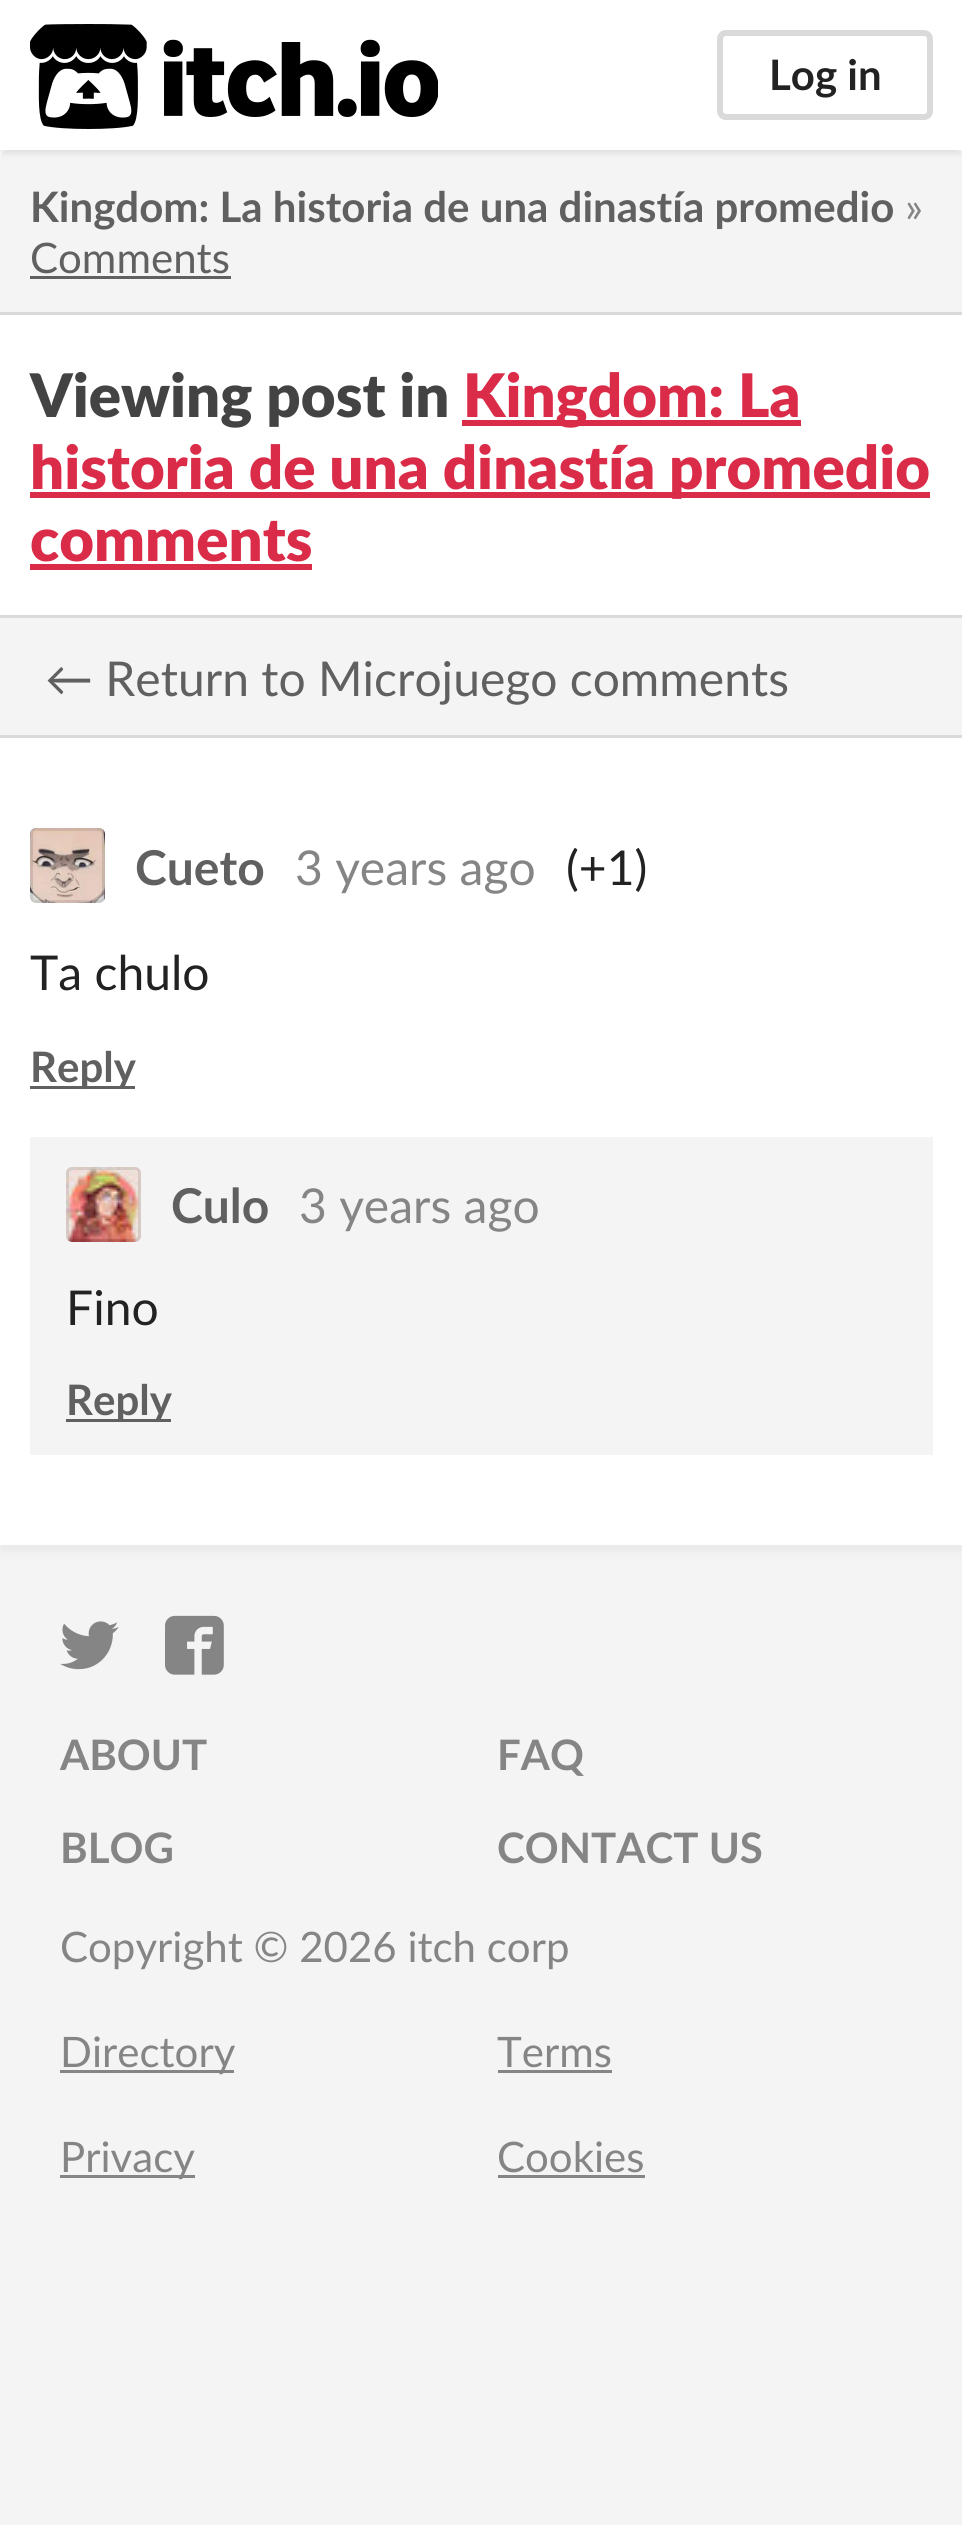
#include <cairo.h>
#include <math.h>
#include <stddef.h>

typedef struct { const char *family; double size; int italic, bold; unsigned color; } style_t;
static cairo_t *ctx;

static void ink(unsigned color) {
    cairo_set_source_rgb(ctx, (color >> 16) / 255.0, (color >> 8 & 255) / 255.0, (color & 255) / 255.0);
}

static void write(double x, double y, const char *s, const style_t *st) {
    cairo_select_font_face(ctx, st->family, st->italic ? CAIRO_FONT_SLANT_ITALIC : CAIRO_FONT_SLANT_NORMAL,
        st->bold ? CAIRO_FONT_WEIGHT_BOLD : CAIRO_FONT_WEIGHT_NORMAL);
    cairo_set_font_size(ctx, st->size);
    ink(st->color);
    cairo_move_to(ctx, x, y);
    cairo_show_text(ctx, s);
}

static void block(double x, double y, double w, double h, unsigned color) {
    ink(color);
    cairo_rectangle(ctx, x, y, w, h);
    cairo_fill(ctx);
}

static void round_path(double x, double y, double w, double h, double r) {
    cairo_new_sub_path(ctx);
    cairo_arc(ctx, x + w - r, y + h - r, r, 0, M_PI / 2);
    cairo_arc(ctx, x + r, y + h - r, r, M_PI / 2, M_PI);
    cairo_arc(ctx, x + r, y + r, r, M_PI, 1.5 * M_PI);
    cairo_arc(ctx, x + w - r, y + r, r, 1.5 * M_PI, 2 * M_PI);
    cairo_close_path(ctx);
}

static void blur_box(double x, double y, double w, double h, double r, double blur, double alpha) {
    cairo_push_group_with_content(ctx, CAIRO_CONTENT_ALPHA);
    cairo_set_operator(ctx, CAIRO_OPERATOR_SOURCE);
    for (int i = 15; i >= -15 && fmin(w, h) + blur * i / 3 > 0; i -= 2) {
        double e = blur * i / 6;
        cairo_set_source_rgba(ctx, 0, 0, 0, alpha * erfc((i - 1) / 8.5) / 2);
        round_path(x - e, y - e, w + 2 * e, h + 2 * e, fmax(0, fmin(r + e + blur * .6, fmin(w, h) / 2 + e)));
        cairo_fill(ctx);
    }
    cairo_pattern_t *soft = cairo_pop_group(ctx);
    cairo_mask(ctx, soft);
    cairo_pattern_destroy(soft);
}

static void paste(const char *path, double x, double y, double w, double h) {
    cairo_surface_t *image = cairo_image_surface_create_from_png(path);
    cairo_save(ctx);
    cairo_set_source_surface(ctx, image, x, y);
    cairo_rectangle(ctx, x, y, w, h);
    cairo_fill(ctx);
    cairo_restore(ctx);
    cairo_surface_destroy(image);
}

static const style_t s1 = {"Lato", 42, 0, 1, 0x222222};
static const style_t s2 = {"Lato", 42, 0, 1, 0x606060};
static const style_t s3 = {"Lato", 42, 0, 0, 0x858585};
static const style_t s4 = {"Lato", 42, 0, 0, 0x606060};
static const style_t s5 = {"Lato Black", 60, 0, 0, 0x434343};
static const style_t s6 = {"Lato Black", 60, 0, 0, 0xda2c49};
static const style_t s7 = {"Lato", 48, 0, 0, 0x606060};
static const style_t s8 = {"Lato", 48, 0, 1, 0x606060};
static const style_t s9 = {"Lato", 48, 0, 0, 0x858585};
static const style_t s10 = {"Lato", 48, 0, 0, 0x222222};
static const style_t s11 = {"Lato", 42, 0, 1, 0x858585};

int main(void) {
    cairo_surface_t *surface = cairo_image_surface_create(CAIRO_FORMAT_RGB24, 962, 2525);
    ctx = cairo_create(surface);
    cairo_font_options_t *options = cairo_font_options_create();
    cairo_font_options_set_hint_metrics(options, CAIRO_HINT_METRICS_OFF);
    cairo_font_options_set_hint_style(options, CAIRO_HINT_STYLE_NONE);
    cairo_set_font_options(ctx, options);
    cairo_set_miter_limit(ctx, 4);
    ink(0xf4f4f4);
    cairo_paint(ctx);
    ink(0x000000);
    blur_box(0, 156, 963, 1395, 0, 6, 0.05);
    block(0, 150, 962, 1395, 0xffffff);
    ink(0xf4f4f4);
    cairo_new_path(ctx);
    cairo_move_to(ctx, 9, 150);
    cairo_line_to(ctx, 954, 150);
    cairo_curve_to(ctx, 959, 150, 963, 154, 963, 159);
    cairo_line_to(ctx, 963, 315);
    cairo_line_to(ctx, 0, 315);
    cairo_line_to(ctx, 0, 159);
    cairo_curve_to(ctx, 0, 154, 4, 150, 9, 150);
    cairo_close_path(ctx);
    cairo_fill(ctx);
    ink(0x000000);
    blur_box(0, 3, 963, 150, 0, 3, 0.1);
    block(0, 0, 962, 150, 0xffffff);
    paste("pic1.png", 30, 24, 408, 105);
    round_path(720, 33, 210, 84, 6);
    ink(0xdadada);
    cairo_set_line_width(ctx, 6);
    cairo_stroke(ctx);
    write(769, 90, "Log in", &s1);
    block(0, 312, 962, 3, 0xdadada);
    write(30, 222, "Kingdom: La historia de una dinastía promedio", &s2);
    write(905, 222, "»", &s3);
    write(30, 273, "Comments", &s4);
    block(30, 276, 201, 3, 0x606060);
    block(0, 615, 962, 3, 0xdadada);
    write(30, 417, "Viewing post in", &s5);
    block(462, 420, 339, 6, 0xda2c49);
    write(463, 417, "Kingdom: La", &s6);
    block(30, 492, 900, 6, 0xda2c49);
    write(30, 489, "historia de una dinastía promedio", &s6);
    write(30, 561, "comments", &s6);
    block(30, 564, 282, 6, 0xda2c49);
    block(0, 618, 962, 117, 0xf4f4f4);
    block(0, 735, 962, 3, 0xdadada);
    write(45, 696, "← Return to Microjuego comments", &s7);
    paste("pic2.png", 30, 828, 75, 75);
    round_path(31.5, 829.5, 72, 72, 4.5);
    cairo_set_source_rgba(ctx, 0, 0, 0, 0.1);
    cairo_set_line_width(ctx, 3);
    cairo_stroke(ctx);
    write(135, 885, "Cueto", &s8);
    write(295, 885, "3 years ago", &s9);
    write(566, 885, "(+1)", &s10);
    write(30, 990, "Ta chulo", &s10);
    block(30, 1086, 105, 3, 0x606060);
    write(30, 1082, "Reply", &s2);
    block(30, 1137, 903, 318, 0xf4f4f4);
    paste("pic3.png", 66, 1167, 75, 75);
    round_path(67.5, 1168.5, 72, 72, 4.5);
    cairo_set_source_rgba(ctx, 0, 0, 0, 0.1);
    cairo_stroke(ctx);
    write(171, 1223, "Culo", &s8);
    write(299, 1223, "3 years ago", &s9);
    write(66, 1325, "Fino", &s10);
    block(66, 1419, 105, 3, 0x606060);
    write(66, 1415, "Reply", &s2);
    paste("pic4.png", 60, 1621, 59, 49);
    paste("pic5.png", 165, 1615, 59, 60);
    write(60, 1770, "ABOUT", &s11);
    write(497, 1770, "FAQ", &s11);
    write(60, 1863, "BLOG", &s11);
    write(497, 1863, "CONTACT US", &s11);
    write(60, 1962, "Copyright © 2026 itch corp", &s3);
    block(60, 2070, 174, 3, 0x858585);
    write(60, 2067, "Directory", &s3);
    write(497, 2067, "Terms", &s3);
    block(498, 2070, 114, 3, 0x858585);
    block(60, 2175, 135, 3, 0x858585);
    write(60, 2172, "Privacy", &s3);
    write(497, 2172, "Cookies", &s3);
    block(498, 2175, 147, 3, 0x858585);
    cairo_surface_write_to_png(surface, "screenshot.png");
    cairo_font_options_destroy(options);
    cairo_destroy(ctx);
    cairo_surface_destroy(surface);
    return 0;
}
